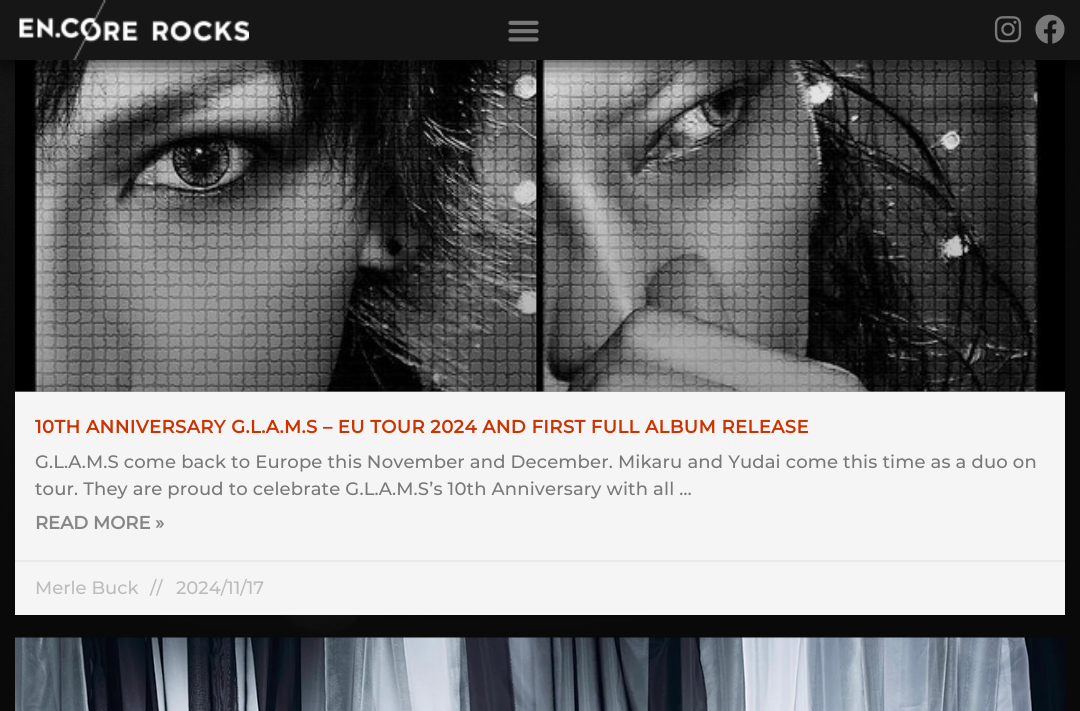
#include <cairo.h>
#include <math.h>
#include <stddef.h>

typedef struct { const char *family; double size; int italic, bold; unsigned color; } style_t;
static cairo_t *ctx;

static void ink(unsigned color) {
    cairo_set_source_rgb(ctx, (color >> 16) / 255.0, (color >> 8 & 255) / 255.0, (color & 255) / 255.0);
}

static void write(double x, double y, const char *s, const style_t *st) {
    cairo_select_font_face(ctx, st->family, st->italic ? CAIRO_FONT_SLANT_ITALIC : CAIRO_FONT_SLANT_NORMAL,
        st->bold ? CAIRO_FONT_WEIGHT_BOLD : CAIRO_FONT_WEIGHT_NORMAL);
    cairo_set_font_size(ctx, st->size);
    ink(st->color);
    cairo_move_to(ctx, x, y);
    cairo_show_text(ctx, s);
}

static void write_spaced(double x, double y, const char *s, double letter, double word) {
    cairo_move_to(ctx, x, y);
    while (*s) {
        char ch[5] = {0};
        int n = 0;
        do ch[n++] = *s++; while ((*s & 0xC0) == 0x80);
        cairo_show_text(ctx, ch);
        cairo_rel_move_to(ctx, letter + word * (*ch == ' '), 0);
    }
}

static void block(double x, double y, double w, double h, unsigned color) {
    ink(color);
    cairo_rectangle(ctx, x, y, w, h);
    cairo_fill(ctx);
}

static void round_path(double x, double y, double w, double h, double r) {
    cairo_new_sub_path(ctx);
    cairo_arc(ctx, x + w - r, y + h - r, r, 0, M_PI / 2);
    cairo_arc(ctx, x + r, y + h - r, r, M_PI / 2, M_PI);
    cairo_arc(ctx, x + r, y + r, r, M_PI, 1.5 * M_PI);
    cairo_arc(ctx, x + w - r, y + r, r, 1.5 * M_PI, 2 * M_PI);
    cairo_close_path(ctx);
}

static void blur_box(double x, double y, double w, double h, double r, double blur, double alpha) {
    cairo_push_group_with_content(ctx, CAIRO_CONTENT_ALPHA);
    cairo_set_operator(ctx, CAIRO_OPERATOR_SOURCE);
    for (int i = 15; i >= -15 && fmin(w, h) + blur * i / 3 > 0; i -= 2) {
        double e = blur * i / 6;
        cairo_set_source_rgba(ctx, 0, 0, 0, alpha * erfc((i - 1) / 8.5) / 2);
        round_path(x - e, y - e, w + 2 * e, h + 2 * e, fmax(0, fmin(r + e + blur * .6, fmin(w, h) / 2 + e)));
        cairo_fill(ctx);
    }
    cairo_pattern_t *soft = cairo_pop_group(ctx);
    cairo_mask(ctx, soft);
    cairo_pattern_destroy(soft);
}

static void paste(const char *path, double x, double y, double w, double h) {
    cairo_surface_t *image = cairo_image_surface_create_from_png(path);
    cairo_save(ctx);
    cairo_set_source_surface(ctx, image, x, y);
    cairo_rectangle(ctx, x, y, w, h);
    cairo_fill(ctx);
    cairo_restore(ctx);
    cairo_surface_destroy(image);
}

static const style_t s1 = {"Montserrat", 18, 0, 1, 0x878787};
static const style_t s2 = {"Montserrat Thin", 18, 0, 0, 0xbcbcbc};

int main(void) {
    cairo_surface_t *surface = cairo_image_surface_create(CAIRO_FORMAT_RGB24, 1080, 711);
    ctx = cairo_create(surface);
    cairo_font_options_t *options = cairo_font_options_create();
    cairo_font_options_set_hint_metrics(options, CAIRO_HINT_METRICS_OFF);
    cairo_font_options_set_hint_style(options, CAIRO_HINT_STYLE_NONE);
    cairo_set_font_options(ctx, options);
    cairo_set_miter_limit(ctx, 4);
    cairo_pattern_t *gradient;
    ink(0xffffff);
    cairo_paint(ctx);
    paste("pic1.png", 0, 60, 1080, 651);
    ink(0x000000);
    blur_box(15, -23, 1050, 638, 0, 7.5, 0.15);
    block(15, 391, 1050, 224, 0xf5f5f5);
    paste("pic6.png", 15, 60, 1050, 332);
    gradient = cairo_pattern_create_linear(540, 392, 540, -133);
    cairo_pattern_add_color_stop_rgba(gradient, 0, 0, 0, 0, 0.35);
    cairo_pattern_add_color_stop_rgba(gradient, 0.75, 0, 0, 0, 0);
    cairo_set_source(ctx, gradient);
    cairo_pattern_destroy(gradient);
    cairo_rectangle(ctx, 15, 60, 1050, 332);
    cairo_fill(ctx);
    ink(0x000000);
    blur_box(0, 0, 1080, 60, 0, 15, 1);
    block(0, 0, 1080, 60, 0x161616);
    paste("pic2.png", 19, 0, 230, 60);
    paste("pic3.png", 508, 20, 31, 22);
    paste("pic4.png", 994, 16, 28, 27);
    paste("pic5.png", 1035, 14, 30, 30);
    cairo_select_font_face(ctx, "Montserrat", CAIRO_FONT_SLANT_NORMAL, CAIRO_FONT_WEIGHT_BOLD);
    cairo_set_font_size(ctx, 18);
    ink(0xcc3300);
    write_spaced(35, 433, "10TH ANNIVERSARY G.L.A.M.S – EU TOUR 2024 AND FIRST FULL ALBUM RELEASE", 0.45, 0);
    cairo_select_font_face(ctx, "Montserrat Thin", CAIRO_FONT_SLANT_NORMAL, CAIRO_FONT_WEIGHT_NORMAL);
    ink(0x787878);
    write_spaced(35, 468, "G.L.A.M.S come back to Europe this November and December. Mikaru and Yudai come this time as a duo on", 0.15, 0);
    write_spaced(35, 495, "tour. They are proud to celebrate G.L.A.M.S’s 10th Anniversary with all …", 0.15, 0);
    write(35, 529, "READ MORE »", &s1);
    block(15, 560, 1050, 2, 0xeaeaea);
    write(35, 594, "Merle Buck", &s2);
    write(150, 594, "//", &s2);
    write(176, 594, "2024/11/17", &s2);
    paste("pic7.png", 15, 637, 1050, 74);
    cairo_surface_write_to_png(surface, "screenshot.png");
    cairo_font_options_destroy(options);
    cairo_destroy(ctx);
    cairo_surface_destroy(surface);
    return 0;
}
